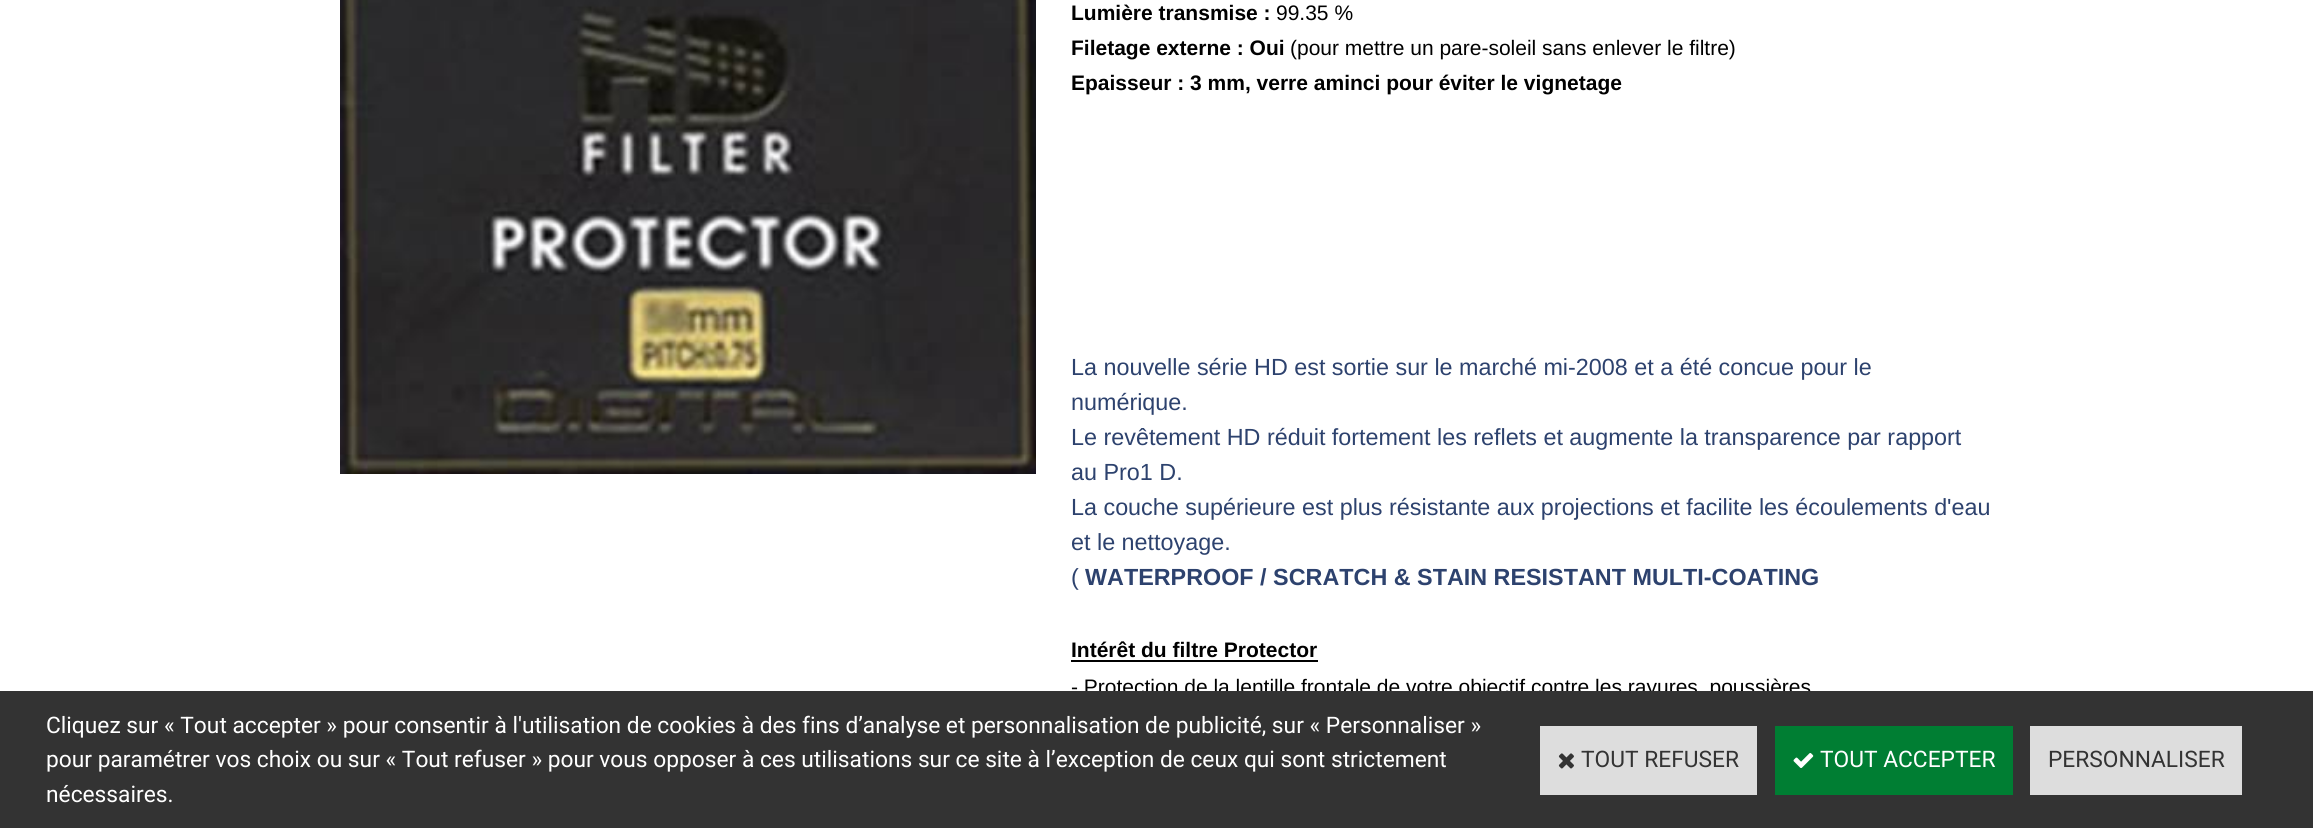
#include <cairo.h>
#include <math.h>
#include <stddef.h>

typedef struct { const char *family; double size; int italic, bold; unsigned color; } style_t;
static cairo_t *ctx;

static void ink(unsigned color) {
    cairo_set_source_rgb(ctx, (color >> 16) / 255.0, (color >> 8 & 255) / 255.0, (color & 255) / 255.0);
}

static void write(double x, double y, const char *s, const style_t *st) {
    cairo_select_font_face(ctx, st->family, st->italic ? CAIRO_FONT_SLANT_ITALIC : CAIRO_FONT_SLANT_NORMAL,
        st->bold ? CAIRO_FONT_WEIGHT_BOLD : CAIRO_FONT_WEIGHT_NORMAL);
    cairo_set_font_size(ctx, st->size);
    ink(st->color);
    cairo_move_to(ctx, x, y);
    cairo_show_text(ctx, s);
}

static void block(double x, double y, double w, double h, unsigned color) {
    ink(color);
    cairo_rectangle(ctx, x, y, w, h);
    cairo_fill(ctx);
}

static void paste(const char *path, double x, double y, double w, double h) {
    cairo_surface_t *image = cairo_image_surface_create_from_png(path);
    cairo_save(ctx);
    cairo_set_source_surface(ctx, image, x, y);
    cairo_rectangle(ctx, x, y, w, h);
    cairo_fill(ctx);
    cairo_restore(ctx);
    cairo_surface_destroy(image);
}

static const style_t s1 = {"Liberation Sans", 21, 0, 1, 0x000000};
static const style_t s2 = {"Liberation Sans", 21, 0, 0, 0x000000};
static const style_t s3 = {"Liberation Sans", 23.35, 0, 0, 0x2d426e};
static const style_t s4 = {"Liberation Sans", 23.35, 0, 1, 0x2d426e};
static const style_t s5 = {"Roboto", 22.75, 0, 0, 0xffffff};
static const style_t s6 = {"Roboto", 22.75, 0, 0, 0x333333};

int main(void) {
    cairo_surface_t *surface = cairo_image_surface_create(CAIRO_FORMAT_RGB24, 2313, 828);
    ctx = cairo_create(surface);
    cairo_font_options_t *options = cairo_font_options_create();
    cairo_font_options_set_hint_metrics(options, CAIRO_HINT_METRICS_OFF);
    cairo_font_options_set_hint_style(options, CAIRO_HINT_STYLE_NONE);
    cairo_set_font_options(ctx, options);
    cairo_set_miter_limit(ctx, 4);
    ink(0xffffff);
    cairo_paint(ctx);
    paste("pic1.png", 340, 0, 696, 474);
    write(1071, 20, "Lumière transmise :", &s1);
    write(1276, 20, "99.35 %", &s2);
    write(1071, 55, "Filetage externe : Oui", &s1);
    write(1290, 55, "(pour mettre un pare-soleil sans enlever le filtre)", &s2);
    write(1071, 90, "Epaisseur : 3 mm, verre aminci pour éviter le vignetage", &s1);
    write(1071, 375, "La nouvelle série HD est sortie sur le marché mi-2008 et a été concue pour le", &s3);
    write(1071, 410, "numérique.", &s3);
    write(1071, 445, "Le revêtement HD réduit fortement les reflets et augmente la transparence par rapport", &s3);
    write(1071, 480, "au Pro1 D.", &s3);
    write(1071, 515, "La couche supérieure est plus résistante aux projections et facilite les écoulements d'eau", &s3);
    write(1071, 550, "et le nettoyage.", &s3);
    write(1071, 585, "(", &s3);
    write(1085, 585, "WATERPROOF / SCRATCH & STAIN RESISTANT MULTI-COATING", &s4);
    write(1071, 657, "Intérêt du filtre Protector", &s1);
    block(1071, 660, 247, 2, 0x000000);
    write(1071, 694, "- Protection de la lentille frontale de votre objectif contre les rayures, poussières", &s2);
    block(0, 691, 2313, 137, 0x333333);
    write(46, 733, "Cliquez sur « Tout accepter » pour consentir à l'utilisation de cookies à des fins d’analyse et personnalisation de publicité, sur « Personnaliser »", &s5);
    write(46, 767, "pour paramétrer vos choix ou sur « Tout refuser » pour vous opposer à ces utilisations sur ce site à l’exception de ceux qui sont strictement", &s5);
    write(46, 802, "nécessaires.", &s5);
    block(1540, 726, 217, 69, 0xdddddd);
    paste("pic2.png", 1558, 753, 16, 16);
    write(1581, 767, "TOUT REFUSER", &s6);
    block(1775, 726, 238, 69, 0x007e33);
    paste("pic3.png", 1793, 753, 21, 15);
    write(1820, 767, "TOUT ACCEPTER", &s5);
    block(2030, 726, 212, 69, 0xdddddd);
    write(2048, 767, "PERSONNALISER", &s6);
    cairo_surface_write_to_png(surface, "screenshot.png");
    cairo_font_options_destroy(options);
    cairo_destroy(ctx);
    cairo_surface_destroy(surface);
    return 0;
}
